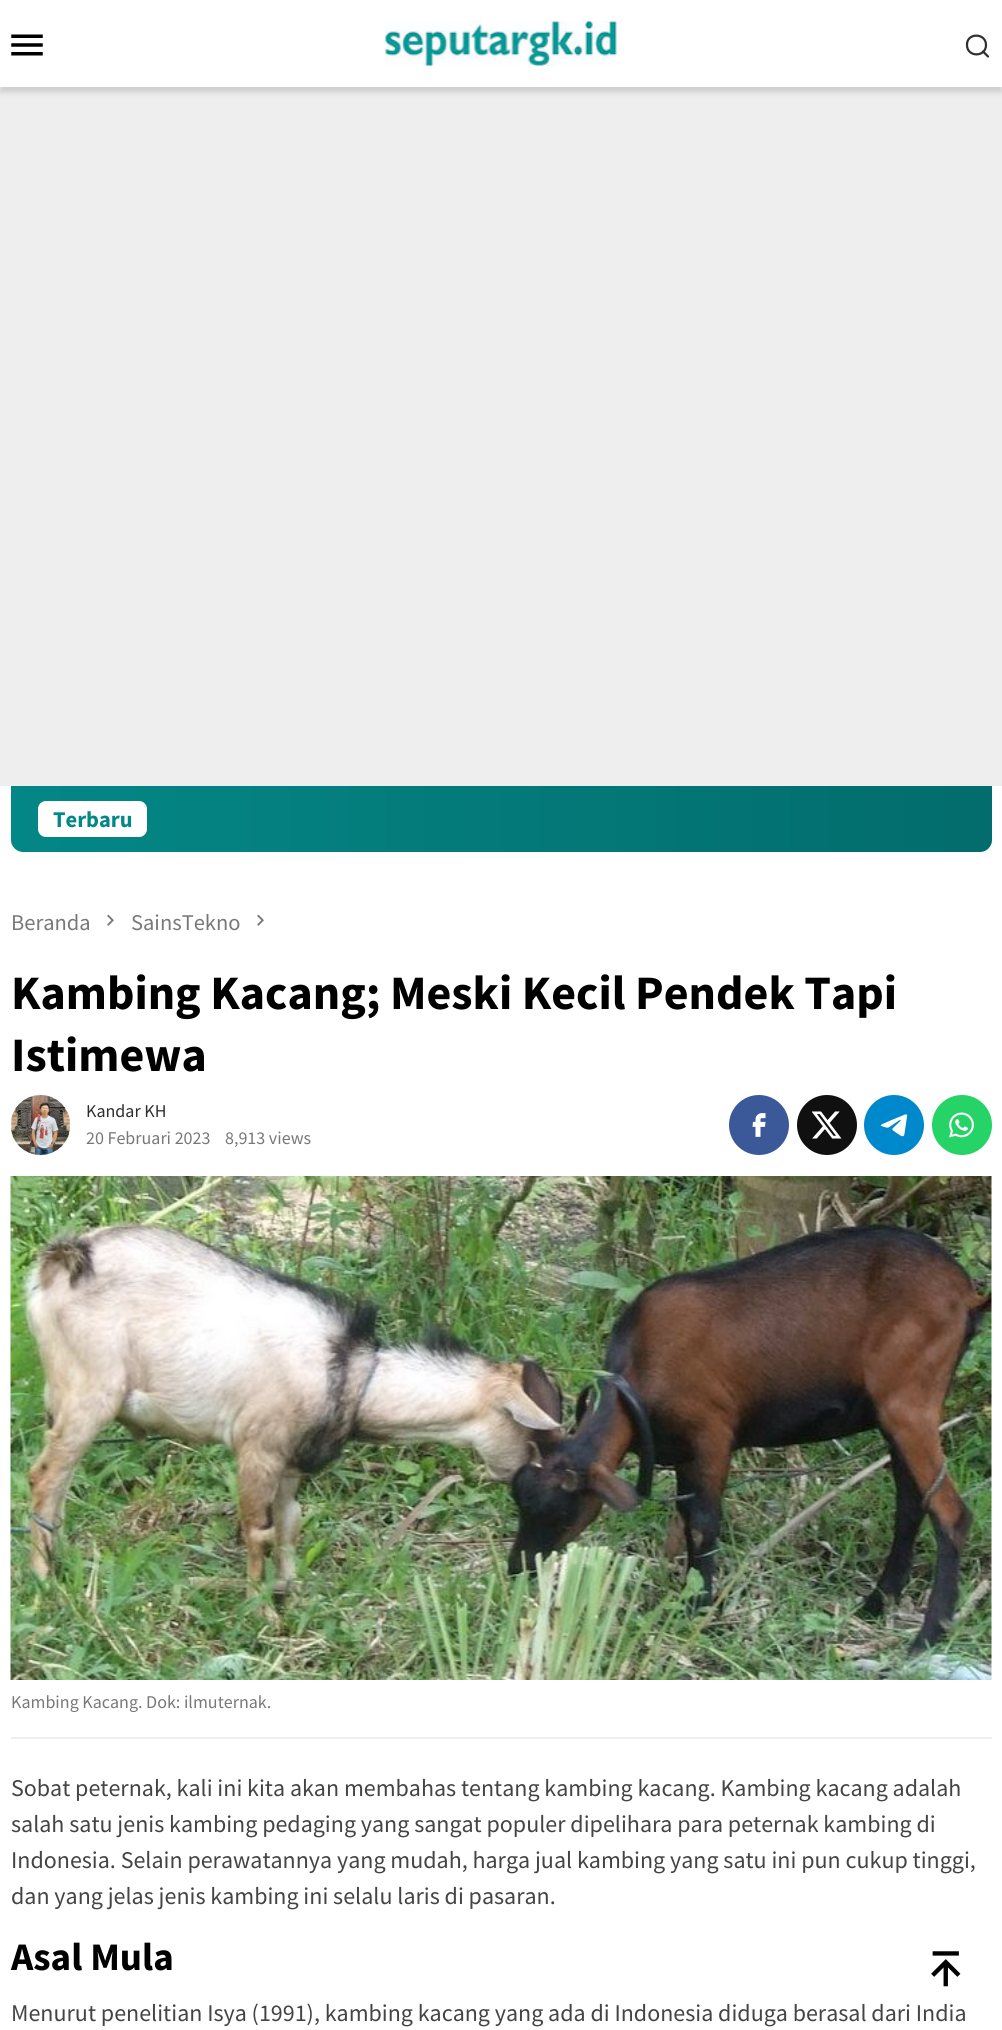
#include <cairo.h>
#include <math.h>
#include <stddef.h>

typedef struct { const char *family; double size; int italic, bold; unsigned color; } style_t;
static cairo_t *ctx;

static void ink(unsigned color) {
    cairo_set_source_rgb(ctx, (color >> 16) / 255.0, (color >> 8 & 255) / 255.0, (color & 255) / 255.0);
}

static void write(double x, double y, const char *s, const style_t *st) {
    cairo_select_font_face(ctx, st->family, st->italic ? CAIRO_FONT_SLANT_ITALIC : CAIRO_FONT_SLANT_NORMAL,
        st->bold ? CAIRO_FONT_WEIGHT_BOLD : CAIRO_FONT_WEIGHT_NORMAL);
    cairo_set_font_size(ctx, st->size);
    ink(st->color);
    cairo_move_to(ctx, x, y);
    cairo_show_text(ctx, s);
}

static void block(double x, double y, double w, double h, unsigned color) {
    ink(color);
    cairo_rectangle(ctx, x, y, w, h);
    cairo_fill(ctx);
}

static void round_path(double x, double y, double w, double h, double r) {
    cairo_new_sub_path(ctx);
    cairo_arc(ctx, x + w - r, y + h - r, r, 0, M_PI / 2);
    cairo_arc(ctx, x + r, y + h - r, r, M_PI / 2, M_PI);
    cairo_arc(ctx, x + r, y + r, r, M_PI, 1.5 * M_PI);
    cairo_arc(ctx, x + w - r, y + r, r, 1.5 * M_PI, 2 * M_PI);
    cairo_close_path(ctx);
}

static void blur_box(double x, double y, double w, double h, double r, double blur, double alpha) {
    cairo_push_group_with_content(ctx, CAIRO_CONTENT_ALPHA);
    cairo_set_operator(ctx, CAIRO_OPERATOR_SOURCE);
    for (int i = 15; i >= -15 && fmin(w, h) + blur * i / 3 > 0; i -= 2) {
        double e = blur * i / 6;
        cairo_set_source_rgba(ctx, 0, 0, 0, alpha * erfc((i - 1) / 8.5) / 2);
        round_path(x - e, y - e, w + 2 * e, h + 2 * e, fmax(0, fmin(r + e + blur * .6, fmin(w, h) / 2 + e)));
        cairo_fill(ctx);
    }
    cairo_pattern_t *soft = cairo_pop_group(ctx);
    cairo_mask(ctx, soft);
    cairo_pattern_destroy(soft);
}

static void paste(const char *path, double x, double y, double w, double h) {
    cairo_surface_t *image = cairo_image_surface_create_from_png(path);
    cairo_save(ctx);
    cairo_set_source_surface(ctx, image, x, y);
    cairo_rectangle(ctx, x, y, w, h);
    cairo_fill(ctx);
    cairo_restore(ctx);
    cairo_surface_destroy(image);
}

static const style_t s1 = {"Source Sans Pro", 22.5, 0, 1, 0x048787};
static const style_t s2 = {"Source Sans Pro", 22.5, 0, 0, 0x787878};
static const style_t s3 = {"Source Sans Pro", 48, 0, 1, 0x000000};
static const style_t s4 = {"Source Sans Pro", 18, 0, 0, 0x2e2e2e};
static const style_t s5 = {"Source Sans Pro", 18, 0, 0, 0x787878};
static const style_t s6 = {"Source Sans Pro", 24, 0, 0, 0x444444};
static const style_t s7 = {"Source Sans Pro", 39, 0, 1, 0x000000};

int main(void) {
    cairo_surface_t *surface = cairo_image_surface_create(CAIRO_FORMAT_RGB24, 1002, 2030);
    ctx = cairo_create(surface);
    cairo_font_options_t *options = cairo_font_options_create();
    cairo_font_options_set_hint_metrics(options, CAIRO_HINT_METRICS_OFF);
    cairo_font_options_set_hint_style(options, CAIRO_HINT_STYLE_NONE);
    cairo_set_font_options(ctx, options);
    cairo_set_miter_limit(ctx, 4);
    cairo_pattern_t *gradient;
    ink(0xeeeeee);
    cairo_paint(ctx);
    ink(0x343434);
    blur_box(0, 5, 1002, 87, 0, 3, 0.18);
    block(0, 0, 1002, 87, 0xffffff);
    paste("pic1.png", 11, 34, 32, 22);
    paste("pic2.png", 385, 21, 232, 45);
    cairo_new_path(ctx);
    cairo_move_to(ctx, 988, 56.5);
    cairo_line_to(ctx, 983, 51.5);
    cairo_move_to(ctx, 986, 45);
    cairo_curve_to(ctx, 986, 57.5, 967, 57.5, 967, 45);
    cairo_curve_to(ctx, 966.5, 32.5, 986, 32.5, 986, 45);
    cairo_close_path(ctx);
    ink(0x2e2e2e);
    cairo_set_line_width(ctx, 2.2);
    cairo_set_line_cap(ctx, CAIRO_LINE_CAP_ROUND);
    cairo_stroke(ctx);
    block(0, 786, 1002, 1244, 0xffffff);
    ink(0x048787);
    cairo_new_path(ctx);
    cairo_move_to(ctx, 11, 786);
    cairo_line_to(ctx, 992, 786);
    cairo_line_to(ctx, 992, 840);
    cairo_curve_to(ctx, 992, 846.5, 986.5, 852, 980, 852);
    cairo_line_to(ctx, 23, 852);
    cairo_curve_to(ctx, 16.5, 852, 11, 846.5, 11, 840);
    cairo_close_path(ctx);
    cairo_fill(ctx);
    gradient = cairo_pattern_create_linear(11, 819, 992, 819);
    cairo_pattern_add_color_stop_rgba(gradient, 0, 0, 0, 0, 0);
    cairo_pattern_add_color_stop_rgba(gradient, 1, 0, 0, 0, 0.2);
    cairo_set_source(ctx, gradient);
    cairo_pattern_destroy(gradient);
    cairo_new_path(ctx);
    cairo_move_to(ctx, 11, 786);
    cairo_line_to(ctx, 992, 786);
    cairo_line_to(ctx, 992, 840);
    cairo_curve_to(ctx, 992, 846.5, 986.5, 852, 980, 852);
    cairo_line_to(ctx, 23, 852);
    cairo_curve_to(ctx, 16.5, 852, 11, 846.5, 11, 840);
    cairo_close_path(ctx);
    cairo_fill(ctx);
    ink(0xffffff);
    round_path(38, 801, 109, 36, 8);
    cairo_fill(ctx);
    write(53, 827, "Terbaru", &s1);
    write(11, 930, "Beranda", &s2);
    paste("pic3.png", 107, 914, 7, 12);
    write(131, 930, "SainsTekno", &s2);
    paste("pic3.png", 257, 914, 7, 12);
    write(11, 1009, "Kambing Kacang; Meski Kecil Pendek Tapi", &s3);
    write(11, 1071, "Istimewa", &s3);
    paste("pic4.png", 11, 1095, 59, 60);
    write(86, 1117, "Kandar KH", &s4);
    write(86, 1144, "20 Februari 2023", &s5);
    write(225, 1144, "8,913 views", &s5);
    ink(0x3b5998);
    cairo_new_path(ctx);
    cairo_arc(ctx, 759, 1125, 30, 0, 2 * M_PI);
    cairo_fill(ctx);
    paste("pic5.png", 752, 1113, 14, 24);
    ink(0x101010);
    cairo_arc(ctx, 827, 1125, 30, 0, 2 * M_PI);
    cairo_fill(ctx);
    paste("pic6.png", 812, 1111, 30, 28);
    ink(0x0088cc);
    cairo_arc(ctx, 894, 1125, 30, 0, 2 * M_PI);
    cairo_fill(ctx);
    paste("pic7.png", 880, 1114, 28, 23);
    ink(0x25d366);
    cairo_arc(ctx, 962, 1125, 30, 0, 2 * M_PI);
    cairo_fill(ctx);
    paste("pic8.png", 949, 1112, 25, 26);
    paste("pic9.png", 10, 1176, 982, 504);
    block(11, 1737, 981, 2, 0xeeeeee);
    write(11, 1708, "Kambing Kacang. Dok: ilmuternak.", &s5);
    write(11, 1796, "Sobat peternak, kali ini kita akan membahas tentang kambing kacang. Kambing kacang adalah", &s6);
    write(11, 1832, "salah satu jenis kambing pedaging yang sangat populer dipelihara para peternak kambing di", &s6);
    write(11, 1868, "Indonesia. Selain perawatannya yang mudah, harga jual kambing yang satu ini pun cukup tinggi,", &s6);
    write(11, 1904, "dan yang jelas jenis kambing ini selalu laris di pasaran.", &s6);
    write(11, 1970, "Asal Mula", &s7);
    write(11, 2021, "Menurut penelitian Isya (1991), kambing kacang yang ada di Indonesia diduga berasal dari India", &s6);
    paste("pic10.png", 931, 1951, 30, 36);
    cairo_surface_write_to_png(surface, "screenshot.png");
    cairo_font_options_destroy(options);
    cairo_destroy(ctx);
    cairo_surface_destroy(surface);
    return 0;
}
